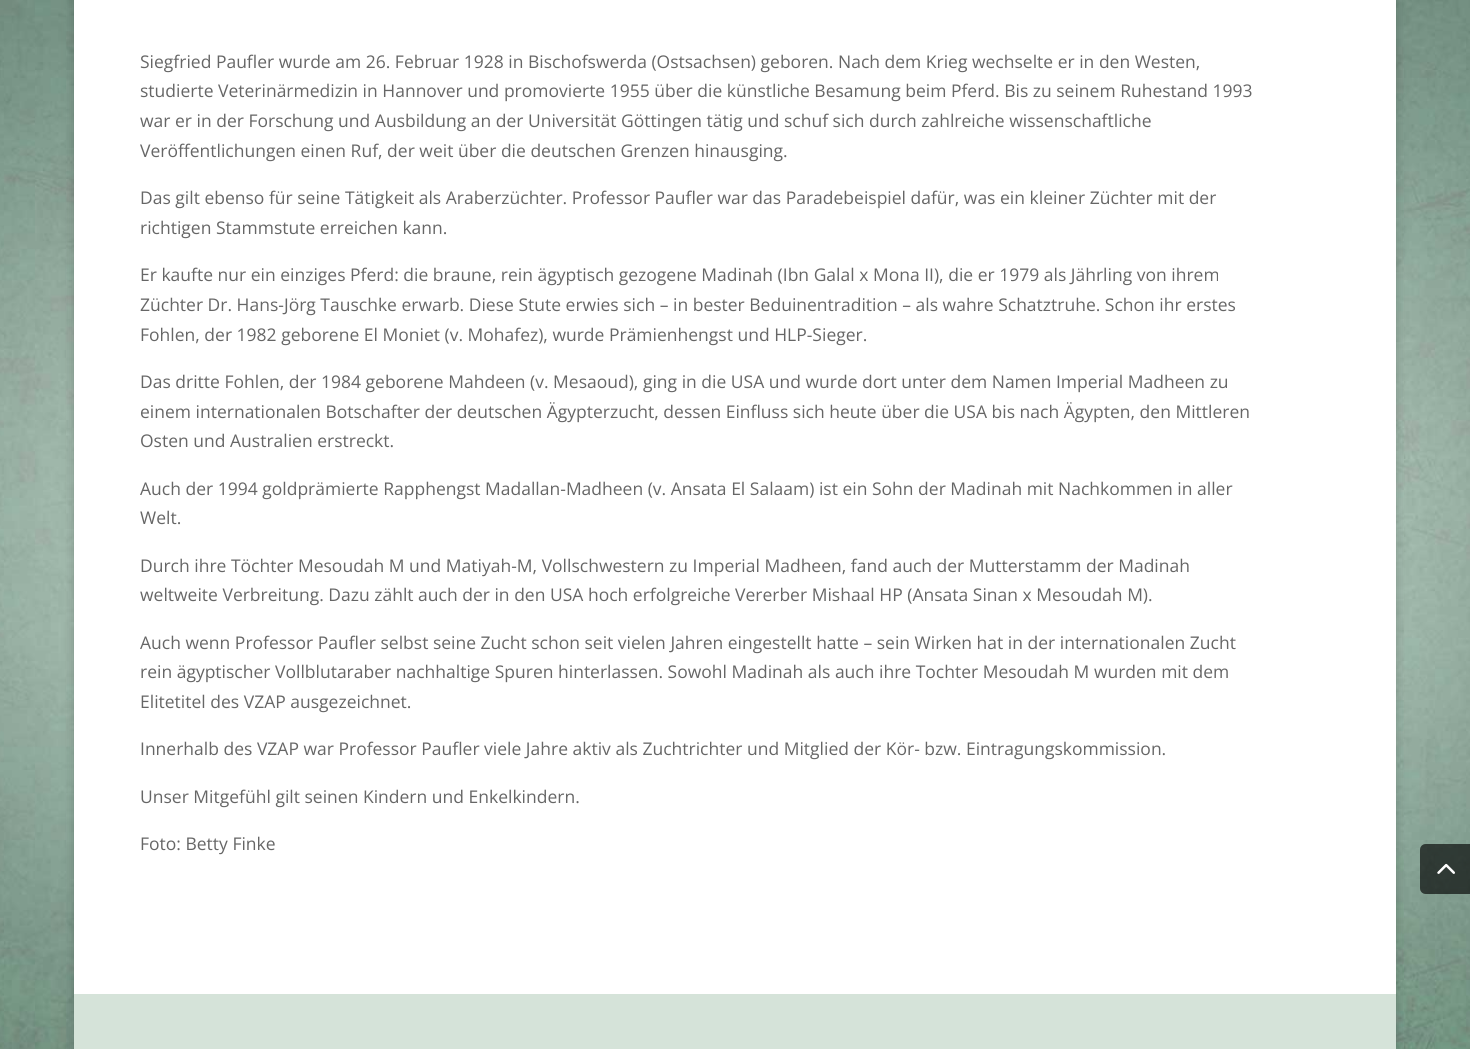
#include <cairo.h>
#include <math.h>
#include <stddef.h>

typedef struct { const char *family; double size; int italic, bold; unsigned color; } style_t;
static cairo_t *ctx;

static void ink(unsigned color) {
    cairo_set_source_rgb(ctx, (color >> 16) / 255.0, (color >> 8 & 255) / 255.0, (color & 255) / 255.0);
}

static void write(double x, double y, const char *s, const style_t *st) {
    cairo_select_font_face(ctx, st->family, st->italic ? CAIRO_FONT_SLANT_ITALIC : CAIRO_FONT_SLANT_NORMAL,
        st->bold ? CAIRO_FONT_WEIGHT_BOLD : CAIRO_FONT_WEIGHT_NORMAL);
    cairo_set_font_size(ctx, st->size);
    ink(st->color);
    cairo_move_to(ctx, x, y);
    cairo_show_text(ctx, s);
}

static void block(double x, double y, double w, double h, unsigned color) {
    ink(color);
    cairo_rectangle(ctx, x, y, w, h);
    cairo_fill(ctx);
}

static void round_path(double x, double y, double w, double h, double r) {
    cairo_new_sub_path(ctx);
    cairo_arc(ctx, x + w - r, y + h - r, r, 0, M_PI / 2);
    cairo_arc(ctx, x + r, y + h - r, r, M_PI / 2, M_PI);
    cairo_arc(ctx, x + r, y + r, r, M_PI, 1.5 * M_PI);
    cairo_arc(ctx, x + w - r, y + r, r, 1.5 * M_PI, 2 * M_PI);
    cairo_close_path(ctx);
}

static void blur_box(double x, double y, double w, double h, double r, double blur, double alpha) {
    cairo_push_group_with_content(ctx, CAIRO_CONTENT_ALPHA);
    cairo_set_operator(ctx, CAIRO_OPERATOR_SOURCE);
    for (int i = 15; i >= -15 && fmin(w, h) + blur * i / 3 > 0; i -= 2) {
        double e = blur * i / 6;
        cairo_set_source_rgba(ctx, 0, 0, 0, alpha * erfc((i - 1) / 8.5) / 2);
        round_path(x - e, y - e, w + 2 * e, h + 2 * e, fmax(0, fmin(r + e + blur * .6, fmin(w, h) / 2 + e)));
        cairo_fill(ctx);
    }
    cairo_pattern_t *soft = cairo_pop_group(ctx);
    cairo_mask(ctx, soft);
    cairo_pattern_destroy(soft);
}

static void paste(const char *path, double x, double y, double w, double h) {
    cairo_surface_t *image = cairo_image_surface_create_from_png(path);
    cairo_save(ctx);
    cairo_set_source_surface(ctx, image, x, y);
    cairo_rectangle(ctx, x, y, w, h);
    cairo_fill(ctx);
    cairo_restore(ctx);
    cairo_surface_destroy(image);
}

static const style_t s1 = {"Open Sans", 17.5, 0, 0, 0x666666};

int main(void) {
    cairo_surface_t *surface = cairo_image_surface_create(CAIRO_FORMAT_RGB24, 1470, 1049);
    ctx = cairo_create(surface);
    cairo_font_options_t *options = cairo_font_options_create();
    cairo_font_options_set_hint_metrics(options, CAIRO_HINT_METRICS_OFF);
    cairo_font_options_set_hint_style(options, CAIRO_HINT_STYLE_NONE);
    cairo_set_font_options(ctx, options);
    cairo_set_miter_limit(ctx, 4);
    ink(0xffffff);
    cairo_paint(ctx);
    paste("pic1.png", 0, 0, 1470, 1049);
    ink(0x000000);
    blur_box(74, -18, 1322, 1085, 0, 6, 0.2);
    block(74, 0, 1322, 994, 0xffffff);
    write(140, 68, "Siegfried Paufler wurde am 26. Februar 1928 in Bischofswerda (Ostsachsen) geboren. Nach dem Krieg wechselte er in den Westen,", &s1);
    write(140, 97, "studierte Veterinärmedizin in Hannover und promovierte 1955 über die künstliche Besamung beim Pferd. Bis zu seinem Ruhestand 1993", &s1);
    write(140, 127, "war er in der Forschung und Ausbildung an der Universität Göttingen tätig und schuf sich durch zahlreiche wissenschaftliche", &s1);
    write(140, 157, "Veröffentlichungen einen Ruf, der weit über die deutschen Grenzen hinausging.", &s1);
    write(140, 204, "Das gilt ebenso für seine Tätigkeit als Araberzüchter. Professor Paufler war das Paradebeispiel dafür, was ein kleiner Züchter mit der", &s1);
    write(140, 234, "richtigen Stammstute erreichen kann.", &s1);
    write(140, 281, "Er kaufte nur ein einziges Pferd: die braune, rein ägyptisch gezogene Madinah (Ibn Galal x Mona II), die er 1979 als Jährling von ihrem", &s1);
    write(140, 311, "Züchter Dr. Hans-Jörg Tauschke erwarb. Diese Stute erwies sich – in bester Beduinentradition – als wahre Schatztruhe. Schon ihr erstes", &s1);
    write(140, 341, "Fohlen, der 1982 geborene El Moniet (v. Mohafez), wurde Prämienhengst und HLP-Sieger.", &s1);
    write(140, 388, "Das dritte Fohlen, der 1984 geborene Mahdeen (v. Mesaoud), ging in die USA und wurde dort unter dem Namen Imperial Madheen zu", &s1);
    write(140, 418, "einem internationalen Botschafter der deutschen Ägypterzucht, dessen Einfluss sich heute über die USA bis nach Ägypten, den Mittleren", &s1);
    write(140, 447, "Osten und Australien erstreckt.", &s1);
    write(140, 495, "Auch der 1994 goldprämierte Rapphengst Madallan-Madheen (v. Ansata El Salaam) ist ein Sohn der Madinah mit Nachkommen in aller", &s1);
    write(140, 524, "Welt.", &s1);
    write(140, 572, "Durch ihre Töchter Mesoudah M und Matiyah-M, Vollschwestern zu Imperial Madheen, fand auch der Mutterstamm der Madinah", &s1);
    write(140, 601, "weltweite Verbreitung. Dazu zählt auch der in den USA hoch erfolgreiche Vererber Mishaal HP (Ansata Sinan x Mesoudah M).", &s1);
    write(140, 649, "Auch wenn Professor Paufler selbst seine Zucht schon seit vielen Jahren eingestellt hatte – sein Wirken hat in der internationalen Zucht", &s1);
    write(140, 678, "rein ägyptischer Vollblutaraber nachhaltige Spuren hinterlassen. Sowohl Madinah als auch ihre Tochter Mesoudah M wurden mit dem", &s1);
    write(140, 708, "Elitetitel des VZAP ausgezeichnet.", &s1);
    write(140, 755, "Innerhalb des VZAP war Professor Paufler viele Jahre aktiv als Zuchtrichter und Mitglied der Kör- bzw. Eintragungskommission.", &s1);
    write(140, 803, "Unser Mitgefühl gilt seinen Kindern und Enkelkindern.", &s1);
    write(140, 850, "Foto: Betty Finke", &s1);
    cairo_set_source_rgba(ctx, 0, 0, 0, 0.4);
    cairo_new_path(ctx);
    cairo_move_to(ctx, 1426, 844);
    cairo_line_to(ctx, 1470, 844);
    cairo_line_to(ctx, 1470, 894);
    cairo_line_to(ctx, 1426, 894);
    cairo_curve_to(ctx, 1422.5, 894, 1420, 891.5, 1420, 888);
    cairo_line_to(ctx, 1420, 850);
    cairo_curve_to(ctx, 1420, 846.5, 1422.5, 844, 1426, 844);
    cairo_close_path(ctx);
    cairo_fill(ctx);
    paste("pic2.png", 1437, 863, 18, 11);
    block(74, 994, 1322, 55, 0xd5e3d9);
    cairo_set_source_rgba(ctx, 0, 0, 0, 0.4);
    cairo_new_path(ctx);
    cairo_move_to(ctx, 1426, 844);
    cairo_line_to(ctx, 1470, 844);
    cairo_line_to(ctx, 1470, 894);
    cairo_line_to(ctx, 1426, 894);
    cairo_curve_to(ctx, 1422.5, 894, 1420, 891.5, 1420, 888);
    cairo_line_to(ctx, 1420, 850);
    cairo_curve_to(ctx, 1420, 846.5, 1422.5, 844, 1426, 844);
    cairo_close_path(ctx);
    cairo_fill(ctx);
    paste("pic3.png", 1437, 863, 18, 11);
    cairo_surface_write_to_png(surface, "screenshot.png");
    cairo_font_options_destroy(options);
    cairo_destroy(ctx);
    cairo_surface_destroy(surface);
    return 0;
}
